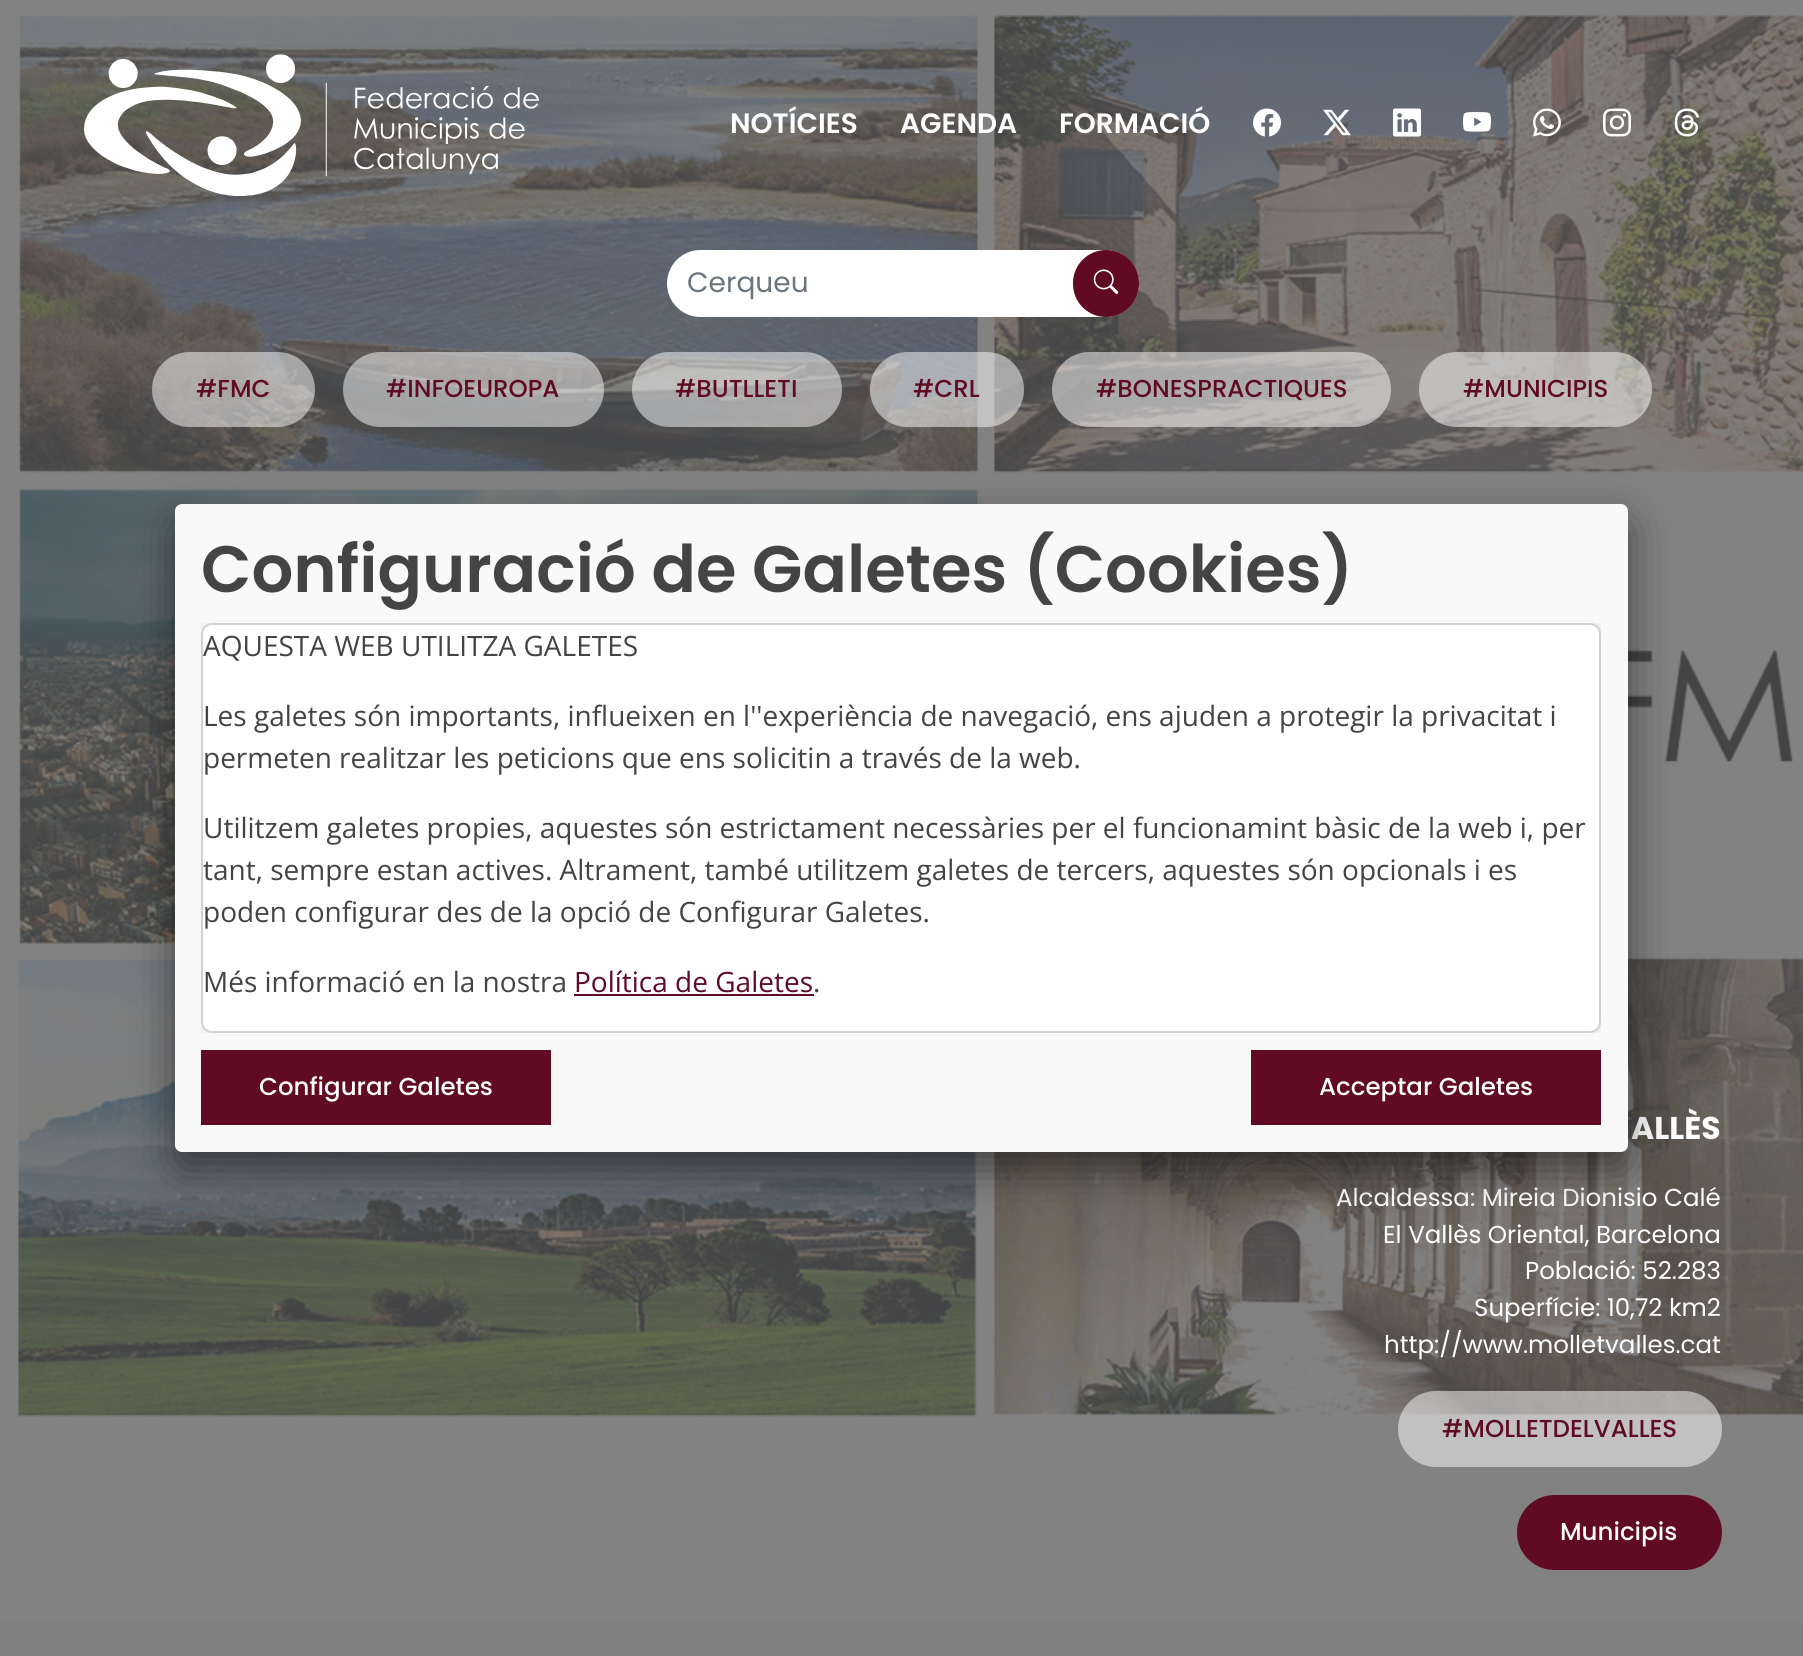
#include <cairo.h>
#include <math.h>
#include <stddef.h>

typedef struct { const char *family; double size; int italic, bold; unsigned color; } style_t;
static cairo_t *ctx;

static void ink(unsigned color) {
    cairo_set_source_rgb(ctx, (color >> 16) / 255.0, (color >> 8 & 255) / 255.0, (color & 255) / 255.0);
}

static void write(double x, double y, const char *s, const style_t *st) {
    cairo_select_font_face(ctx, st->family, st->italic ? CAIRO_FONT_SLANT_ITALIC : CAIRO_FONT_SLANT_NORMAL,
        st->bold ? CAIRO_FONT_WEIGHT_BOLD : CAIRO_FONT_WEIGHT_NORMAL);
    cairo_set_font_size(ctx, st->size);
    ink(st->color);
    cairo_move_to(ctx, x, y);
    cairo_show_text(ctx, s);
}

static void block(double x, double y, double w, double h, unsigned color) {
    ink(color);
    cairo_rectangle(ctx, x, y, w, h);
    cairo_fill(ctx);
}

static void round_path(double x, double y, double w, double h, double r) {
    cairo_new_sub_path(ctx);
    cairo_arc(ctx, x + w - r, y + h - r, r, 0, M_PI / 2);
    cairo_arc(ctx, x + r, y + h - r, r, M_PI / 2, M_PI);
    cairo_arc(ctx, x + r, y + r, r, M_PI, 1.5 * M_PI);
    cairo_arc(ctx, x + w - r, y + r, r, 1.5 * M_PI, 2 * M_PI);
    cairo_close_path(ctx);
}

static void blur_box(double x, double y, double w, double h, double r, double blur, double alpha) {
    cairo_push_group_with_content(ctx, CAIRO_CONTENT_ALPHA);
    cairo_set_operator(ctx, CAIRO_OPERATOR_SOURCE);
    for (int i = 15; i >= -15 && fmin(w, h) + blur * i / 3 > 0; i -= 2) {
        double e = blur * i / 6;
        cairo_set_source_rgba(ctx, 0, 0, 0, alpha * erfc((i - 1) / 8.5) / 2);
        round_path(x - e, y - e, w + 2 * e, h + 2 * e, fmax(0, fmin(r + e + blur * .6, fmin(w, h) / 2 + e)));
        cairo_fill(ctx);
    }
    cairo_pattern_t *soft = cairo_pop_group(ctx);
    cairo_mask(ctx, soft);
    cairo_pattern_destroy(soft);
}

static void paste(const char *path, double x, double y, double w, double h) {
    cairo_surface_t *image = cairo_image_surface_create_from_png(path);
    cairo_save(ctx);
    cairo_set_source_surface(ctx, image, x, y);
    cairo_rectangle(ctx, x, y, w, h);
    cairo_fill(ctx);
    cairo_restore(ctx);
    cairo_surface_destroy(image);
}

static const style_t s1 = {"Poppins SemiBold", 28, 0, 0, 0xffffff};
static const style_t s2 = {"Poppins", 28, 0, 0, 0x6c757d};
static const style_t s3 = {"Poppins Medium", 24.5, 0, 0, 0x600a23};
static const style_t s4 = {"Poppins", 31.5, 0, 1, 0xffffff};
static const style_t s5 = {"Poppins", 24.5, 0, 0, 0xffffff};
static const style_t s6 = {"Poppins Medium", 24.5, 0, 0, 0xffffff};
static const style_t s7 = {"Poppins SemiBold", 65.6, 0, 0, 0x444444};
static const style_t s8 = {"Open Sans", 28, 0, 0, 0x444444};
static const style_t s9 = {"Open Sans", 28, 0, 0, 0x600a23};

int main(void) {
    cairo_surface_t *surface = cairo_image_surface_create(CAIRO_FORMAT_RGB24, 1803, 1656);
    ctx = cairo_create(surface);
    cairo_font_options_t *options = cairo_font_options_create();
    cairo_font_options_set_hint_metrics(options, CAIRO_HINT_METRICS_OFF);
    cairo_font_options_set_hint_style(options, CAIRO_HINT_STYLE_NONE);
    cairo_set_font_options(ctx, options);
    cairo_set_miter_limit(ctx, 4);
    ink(0x808080);
    cairo_paint(ctx);
    paste("pic10.png", 0, 0, 1803, 1621);
    paste("pic1.png", 84, 54, 455, 142);
    write(730, 133, "NOTÍCIES", &s1);
    write(900, 133, "AGENDA", &s1);
    write(1059, 133, "FORMACIÓ", &s1);
    paste("pic2.png", 1253, 108, 28, 29);
    paste("pic3.png", 1323, 109, 28, 27);
    paste("pic4.png", 1393, 108, 28, 29);
    paste("pic5.png", 1463, 111, 28, 21);
    paste("pic6.png", 1533, 108, 28, 29);
    paste("pic7.png", 1603, 108, 28, 29);
    paste("pic8.png", 1674, 108, 26, 29);
    round_path(667, 250, 472, 67, 33.5);
    cairo_fill(ctx);
    write(687, 292, "Cerqueu", &s2);
    ink(0x600a23);
    round_path(1074, 251, 64, 65, 32);
    cairo_fill_preserve(ctx);
    cairo_stroke(ctx);
    paste("pic9.png", 1093, 269, 26, 25);
    cairo_set_source_rgba(ctx, 1, 1, 1, 0.5);
    round_path(152, 352, 163, 75, 37.5);
    cairo_fill(ctx);
    write(196, 397, "#FMC", &s3);
    cairo_set_source_rgba(ctx, 1, 1, 1, 0.5);
    round_path(343, 352, 261, 75, 37.5);
    cairo_fill(ctx);
    write(386, 397, "#INFOEUROPA", &s3);
    cairo_set_source_rgba(ctx, 1, 1, 1, 0.5);
    round_path(632, 352, 210, 75, 37.5);
    cairo_fill(ctx);
    write(675, 397, "#BUTLLETI", &s3);
    cairo_set_source_rgba(ctx, 1, 1, 1, 0.5);
    round_path(870, 352, 154, 75, 37.5);
    cairo_fill(ctx);
    write(913, 397, "#CRL", &s3);
    cairo_set_source_rgba(ctx, 1, 1, 1, 0.5);
    round_path(1052, 352, 339, 75, 37.5);
    cairo_fill(ctx);
    write(1096, 397, "#BONESPRACTIQUES", &s3);
    cairo_set_source_rgba(ctx, 1, 1, 1, 0.5);
    round_path(1419, 352, 233, 75, 37.5);
    cairo_fill(ctx);
    write(1463, 397, "#MUNICIPIS", &s3);
    write(1631, 1139, "ALLÈS", &s4);
    write(1336, 1206, "Alcaldessa: Mireia Dionisio Calé", &s5);
    write(1383, 1243, "El Vallès Oriental, Barcelona", &s5);
    write(1525, 1279, "Població: 52.283", &s5);
    write(1474, 1316, "Superfície: 10,72 km2", &s5);
    write(1384, 1353, "http://www.molletvalles.cat", &s5);
    cairo_set_source_rgba(ctx, 1, 1, 1, 0.5);
    round_path(1398, 1391, 324, 76, 38);
    cairo_fill(ctx);
    write(1442, 1437, "#MOLLETDELVALLES", &s3);
    round_path(1518, 1496, 203, 73, 36.5);
    cairo_fill_preserve(ctx);
    cairo_stroke(ctx);
    write(1560, 1540, "Municipis", &s6);
    ink(0x000000);
    blur_box(175, 522, 1453, 647, 7, 22, 0.5);
    ink(0xf9f9f9);
    round_path(175, 504, 1453, 648, 7);
    cairo_fill(ctx);
    write(201, 592, "Configuració de Galetes (Cookies)", &s7);
    block(201, 623, 1400, 410, 0xf1f1f1);
    ink(0xffffff);
    round_path(201, 623, 1400, 410, 11);
    cairo_fill(ctx);
    round_path(202, 624, 1398, 408, 10);
    cairo_set_source_rgba(ctx, 0, 0, 0, 0.18);
    cairo_stroke(ctx);
    write(203, 656, "AQUESTA WEB UTILITZA GALETES", &s8);
    write(203, 726, "Les galetes són importants, influeixen en l''experiència de navegació, ens ajuden a protegir la privacitat i", &s8);
    write(203, 768, "permeten realitzar les peticions que ens solicitin a través de la web.", &s8);
    write(203, 838, "Utilitzem galetes propies, aquestes són estrictament necessàries per el funcionamint bàsic de la web i, per", &s8);
    write(203, 880, "tant, sempre estan actives. Altrament, també utilitzem galetes de tercers, aquestes són opcionals i es", &s8);
    write(203, 922, "poden configurar des de la opció de Configurar Galetes.", &s8);
    write(203, 992, "Més informació en la nostra", &s8);
    write(574, 992, "Política de Galetes", &s9);
    block(574, 994, 240, 2, 0x600a23);
    write(813, 992, ".", &s8);
    block(201, 1050, 350, 75, 0x600a23);
    write(259, 1095, "Configurar Galetes", &s6);
    block(1251, 1050, 350, 75, 0x600a23);
    write(1319, 1095, "Acceptar Galetes", &s6);
    cairo_surface_write_to_png(surface, "screenshot.png");
    cairo_font_options_destroy(options);
    cairo_destroy(ctx);
    cairo_surface_destroy(surface);
    return 0;
}
